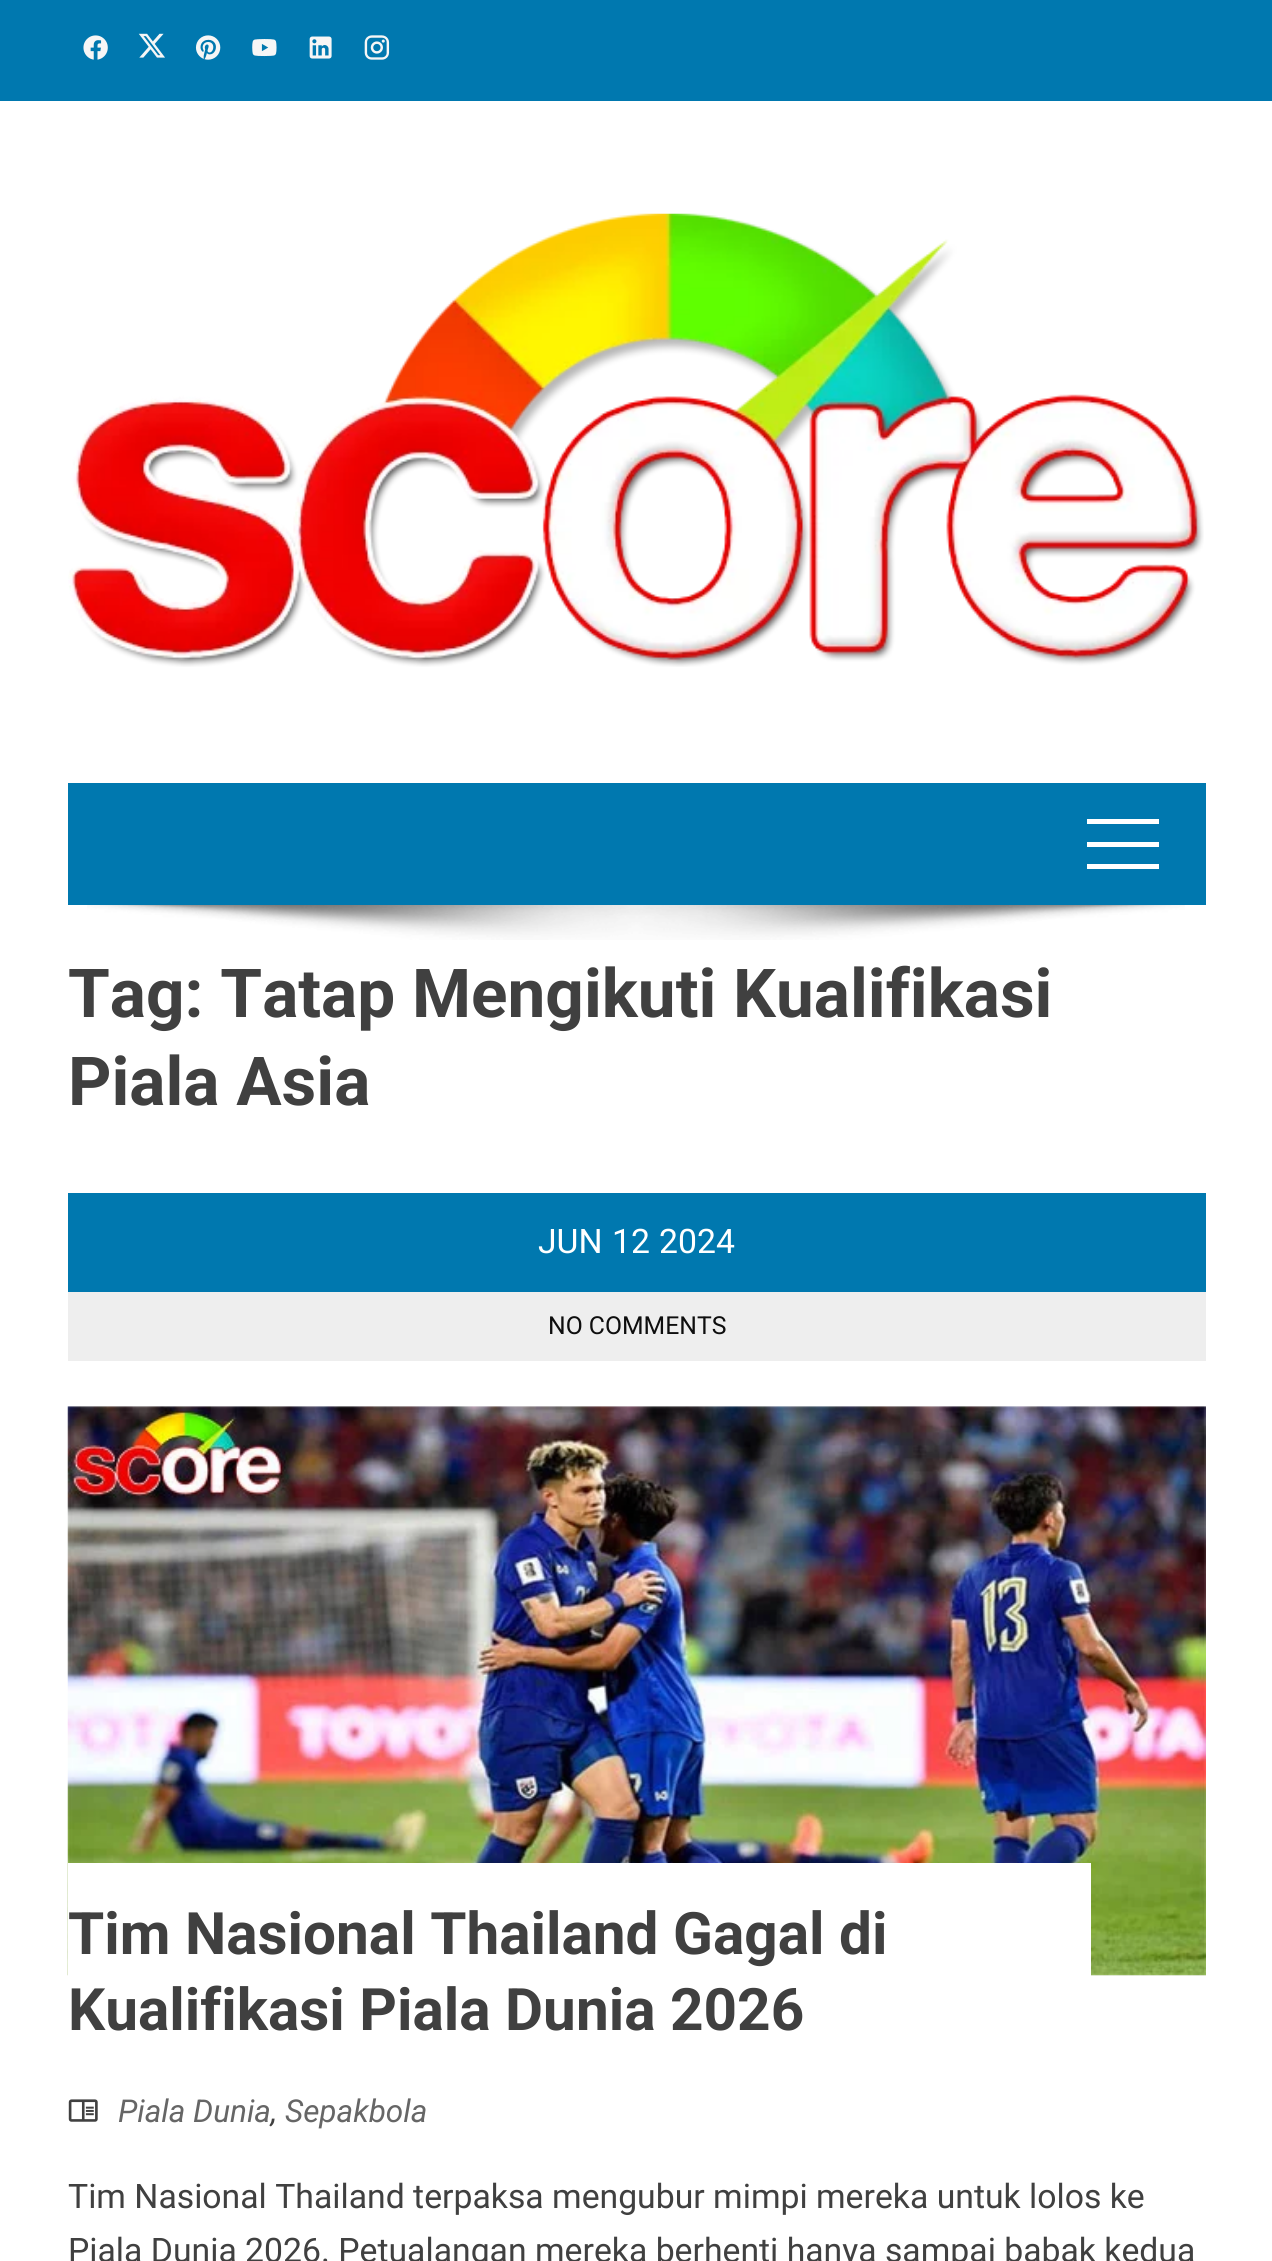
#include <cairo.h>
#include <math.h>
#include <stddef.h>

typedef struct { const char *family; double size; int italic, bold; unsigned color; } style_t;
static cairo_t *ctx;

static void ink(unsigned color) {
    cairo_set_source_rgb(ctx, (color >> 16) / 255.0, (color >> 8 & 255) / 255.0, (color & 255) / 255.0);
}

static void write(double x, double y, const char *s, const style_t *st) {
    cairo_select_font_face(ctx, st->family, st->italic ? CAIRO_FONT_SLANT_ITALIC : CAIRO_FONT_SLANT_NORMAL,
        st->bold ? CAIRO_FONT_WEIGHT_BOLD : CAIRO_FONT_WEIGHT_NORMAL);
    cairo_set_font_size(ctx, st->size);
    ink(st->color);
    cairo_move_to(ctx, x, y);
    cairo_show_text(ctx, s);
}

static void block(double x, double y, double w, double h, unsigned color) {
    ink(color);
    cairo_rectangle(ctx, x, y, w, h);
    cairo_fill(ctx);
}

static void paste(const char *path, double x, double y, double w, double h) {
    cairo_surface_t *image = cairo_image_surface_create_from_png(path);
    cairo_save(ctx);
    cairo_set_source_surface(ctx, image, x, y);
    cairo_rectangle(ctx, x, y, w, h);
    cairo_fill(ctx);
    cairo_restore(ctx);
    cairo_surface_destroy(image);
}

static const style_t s1 = {"Roboto", 67.5, 0, 1, 0x404040};
static const style_t s2 = {"Roboto", 33.75, 0, 0, 0xffffff};
static const style_t s3 = {"Roboto", 24.75, 0, 0, 0x0e0e0e};
static const style_t s4 = {"Roboto", 58.5, 0, 1, 0x404040};
static const style_t s5 = {"Roboto", 31.5, 1, 0, 0x404040};
static const style_t s6 = {"Roboto", 31.5, 1, 0, 0x666666};
static const style_t s7 = {"Roboto", 33.75, 0, 0, 0x404040};

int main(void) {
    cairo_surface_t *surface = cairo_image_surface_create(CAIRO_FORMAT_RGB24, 1272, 2261);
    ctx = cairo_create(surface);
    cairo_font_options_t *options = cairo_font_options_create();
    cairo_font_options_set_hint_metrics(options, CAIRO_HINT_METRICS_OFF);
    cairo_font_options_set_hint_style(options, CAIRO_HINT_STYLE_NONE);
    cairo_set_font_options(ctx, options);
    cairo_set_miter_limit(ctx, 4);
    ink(0xffffff);
    cairo_paint(ctx);
    block(0, 0, 1272, 101, 0x0078af);
    paste("pic1.png", 83, 35, 25, 25);
    paste("pic2.png", 138, 33, 27, 25);
    paste("pic3.png", 195, 35, 26, 25);
    paste("pic4.png", 252, 39, 25, 18);
    paste("pic5.png", 309, 36, 23, 23);
    paste("pic6.png", 364, 35, 26, 25);
    paste("pic7.png", 68, 213, 1136, 454);
    block(68, 783, 1138, 122, 0x0078af);
    block(1087, 819, 72, 5, 0xffffff);
    block(1087, 864, 72, 5, 0xffffff);
    block(1087, 842, 72, 5, 0xffffff);
    paste("pic8.png", 87, 905, 1098, 35);
    write(68, 1017, "Tag: Tatap Mengikuti Kualifikasi", &s1);
    write(68, 1105, "Piala Asia", &s1);
    block(68, 1193, 1138, 99, 0x0078af);
    write(538, 1253, "JUN", &s2);
    write(612, 1253, "12", &s2);
    write(659, 1253, "2024", &s2);
    block(68, 1292, 1138, 69, 0xeeeeee);
    write(548, 1334, "NO COMMENTS", &s3);
    block(68, 1406, 1138, 570, 0xf6f6f6);
    paste("pic9.png", 67, 1406, 1139, 570);
    block(68, 1863, 1023, 113, 0xffffff);
    write(68, 1954, "Tim Nasional Thailand Gagal di", &s4);
    write(68, 2030, "Kualifikasi Piala Dunia 2026", &s4);
    paste("pic10.png", 68, 2099, 30, 23);
    write(271, 2122, ",", &s5);
    write(118, 2122, "Piala Dunia", &s6);
    write(285, 2122, "Sepakbola", &s6);
    write(68, 2208, "Tim Nasional Thailand terpaksa mengubur mimpi mereka untuk lolos ke", &s7);
    write(68, 2262, "Piala Dunia 2026. Petualangan mereka berhenti hanya sampai babak kedua", &s7);
    cairo_surface_write_to_png(surface, "screenshot.png");
    cairo_font_options_destroy(options);
    cairo_destroy(ctx);
    cairo_surface_destroy(surface);
    return 0;
}
